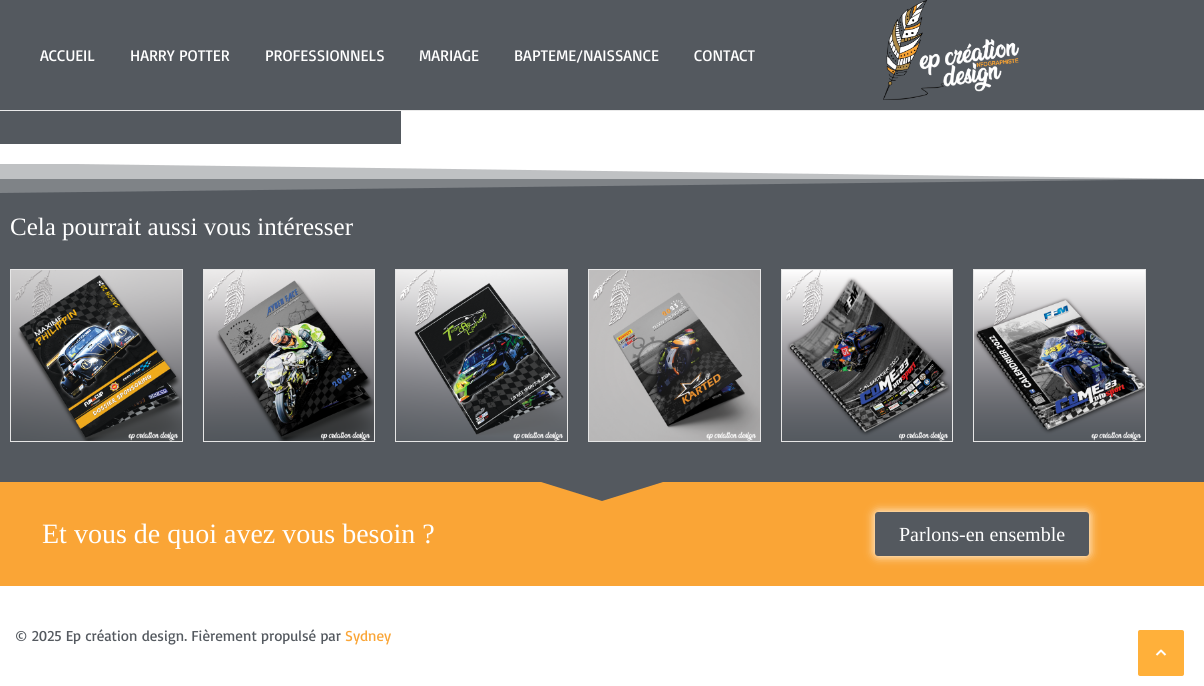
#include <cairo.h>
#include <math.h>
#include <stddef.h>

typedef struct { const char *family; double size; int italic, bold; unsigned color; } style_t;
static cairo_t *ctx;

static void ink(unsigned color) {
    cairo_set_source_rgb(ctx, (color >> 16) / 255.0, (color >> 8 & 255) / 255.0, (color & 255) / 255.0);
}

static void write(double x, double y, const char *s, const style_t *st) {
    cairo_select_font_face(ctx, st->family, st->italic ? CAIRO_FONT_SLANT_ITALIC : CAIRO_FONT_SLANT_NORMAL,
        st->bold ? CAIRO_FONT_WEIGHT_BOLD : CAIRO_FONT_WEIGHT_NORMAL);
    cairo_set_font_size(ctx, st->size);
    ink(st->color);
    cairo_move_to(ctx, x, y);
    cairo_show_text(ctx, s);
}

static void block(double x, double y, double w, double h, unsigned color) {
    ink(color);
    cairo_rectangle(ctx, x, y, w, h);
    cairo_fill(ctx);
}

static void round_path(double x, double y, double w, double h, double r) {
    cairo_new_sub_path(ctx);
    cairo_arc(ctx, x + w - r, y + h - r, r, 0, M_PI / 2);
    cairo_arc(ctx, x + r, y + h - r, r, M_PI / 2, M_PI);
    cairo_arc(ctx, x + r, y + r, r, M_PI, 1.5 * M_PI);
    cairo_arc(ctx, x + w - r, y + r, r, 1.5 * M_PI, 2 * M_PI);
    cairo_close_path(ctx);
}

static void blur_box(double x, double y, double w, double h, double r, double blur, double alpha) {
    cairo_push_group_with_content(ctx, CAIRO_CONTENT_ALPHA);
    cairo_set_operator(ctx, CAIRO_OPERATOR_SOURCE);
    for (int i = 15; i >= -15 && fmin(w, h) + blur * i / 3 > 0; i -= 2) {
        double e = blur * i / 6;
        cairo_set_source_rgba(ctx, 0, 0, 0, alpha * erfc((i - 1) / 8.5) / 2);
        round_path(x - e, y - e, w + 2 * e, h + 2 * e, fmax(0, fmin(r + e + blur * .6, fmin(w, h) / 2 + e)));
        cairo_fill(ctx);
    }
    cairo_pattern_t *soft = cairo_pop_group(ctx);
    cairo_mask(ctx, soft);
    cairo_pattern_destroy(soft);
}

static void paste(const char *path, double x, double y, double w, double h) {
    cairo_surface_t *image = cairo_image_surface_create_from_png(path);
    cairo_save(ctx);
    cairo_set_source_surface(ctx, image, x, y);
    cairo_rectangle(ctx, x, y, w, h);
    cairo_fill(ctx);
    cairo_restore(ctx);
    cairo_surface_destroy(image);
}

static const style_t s1 = {"Basic", 16, 0, 0, 0xffffff};
static const style_t s2 = {"Liberation Serif", 25, 0, 0, 0xffffff};
static const style_t s3 = {"Liberation Serif", 28, 0, 0, 0xffffff};
static const style_t s4 = {"Liberation Serif", 20, 0, 0, 0xffffff};
static const style_t s5 = {"Basic", 15, 0, 0, 0x54595f};
static const style_t s6 = {"Basic", 15, 0, 0, 0xfaa536};

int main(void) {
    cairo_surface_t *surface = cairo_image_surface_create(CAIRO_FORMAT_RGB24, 1204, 686);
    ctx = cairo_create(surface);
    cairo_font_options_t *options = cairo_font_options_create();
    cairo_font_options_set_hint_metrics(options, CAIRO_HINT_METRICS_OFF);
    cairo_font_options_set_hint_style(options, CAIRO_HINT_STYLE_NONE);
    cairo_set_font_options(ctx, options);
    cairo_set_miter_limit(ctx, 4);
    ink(0xffffff);
    cairo_paint(ctx);
    block(0, 0, 1204, 110, 0x54595f);
    block(0, 110, 1204, 1, 0xeaeaea);
    write(40, 61, "ACCUEIL", &s1);
    write(130, 61, "HARRY POTTER", &s1);
    write(265, 61, "PROFESSIONNELS", &s1);
    write(419, 61, "MARIAGE", &s1);
    write(514, 61, "BAPTEME/NAISSANCE", &s1);
    write(694, 61, "CONTACT", &s1);
    paste("pic1.png", 883, 0, 136, 100);
    block(0, 111, 401, 33, 0x54595f);
    block(0, 179, 1204, 303, 0x54595f);
    block(0, 164, 1203, 15, 0xaaacaf);
    ink(0xffffff);
    cairo_new_path(ctx);
    cairo_move_to(ctx, -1, 163);
    cairo_line_to(ctx, 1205, 163);
    cairo_line_to(ctx, 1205, 179);
    cairo_close_path(ctx);
    cairo_fill(ctx);
    cairo_set_source_rgba(ctx, 1, 1, 1, 0.25);
    cairo_new_path(ctx);
    cairo_move_to(ctx, 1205, 163);
    cairo_line_to(ctx, -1, 163);
    cairo_line_to(ctx, -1, 193);
    cairo_line_to(ctx, 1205, 179);
    cairo_close_path(ctx);
    cairo_fill(ctx);
    write(10, 235, "Cela pourrait aussi vous intéresser", &s2);
    cairo_rectangle(ctx, 10.5, 269.5, 172, 172);
    ink(0xe6e6e6);
    cairo_set_line_width(ctx, 1);
    cairo_stroke(ctx);
    paste("pic2.png", 11, 270, 171, 171);
    cairo_rectangle(ctx, 203.5, 269.5, 171, 172);
    cairo_stroke(ctx);
    paste("pic3.png", 204, 270, 170, 171);
    cairo_rectangle(ctx, 395.5, 269.5, 172, 172);
    cairo_stroke(ctx);
    paste("pic4.png", 396, 270, 171, 171);
    cairo_rectangle(ctx, 588.5, 269.5, 172, 172);
    cairo_stroke(ctx);
    paste("pic5.png", 589, 270, 171, 171);
    cairo_rectangle(ctx, 781.5, 269.5, 171, 172);
    cairo_stroke(ctx);
    paste("pic6.png", 782, 270, 170, 171);
    cairo_rectangle(ctx, 973.5, 269.5, 172, 172);
    cairo_stroke(ctx);
    paste("pic7.png", 974, 270, 171, 171);
    block(0, 482, 1204, 104, 0xfaa536);
    ink(0x54595f);
    cairo_new_path(ctx);
    cairo_move_to(ctx, 602, 501);
    cairo_line_to(ctx, 541, 482);
    cairo_line_to(ctx, 541, 481);
    cairo_line_to(ctx, 663, 481);
    cairo_line_to(ctx, 663, 482);
    cairo_close_path(ctx);
    cairo_fill(ctx);
    write(42, 543, "Et vous de quoi avez vous besoin ?", &s3);
    ink(0xffffff);
    blur_box(875, 512, 214, 44, 3, 5, 1);
    ink(0x54595f);
    round_path(875, 512, 214, 44, 3);
    cairo_fill(ctx);
    write(899, 541, "Parlons-en ensemble", &s4);
    write(15, 641, "© 2025 Ep création design. Fièrement propulsé par", &s5);
    write(345, 641, "Sydney", &s6);
    ink(0xffb03a);
    round_path(1138, 630, 46, 46, 2);
    cairo_fill(ctx);
    cairo_new_path(ctx);
    cairo_move_to(ctx, 1156.5, 655);
    cairo_line_to(ctx, 1161, 650.5);
    cairo_line_to(ctx, 1165.5, 655);
    ink(0xffffff);
    cairo_set_line_width(ctx, 2);
    cairo_set_line_join(ctx, CAIRO_LINE_JOIN_ROUND);
    cairo_stroke(ctx);
    cairo_surface_write_to_png(surface, "screenshot.png");
    cairo_font_options_destroy(options);
    cairo_destroy(ctx);
    cairo_surface_destroy(surface);
    return 0;
}
